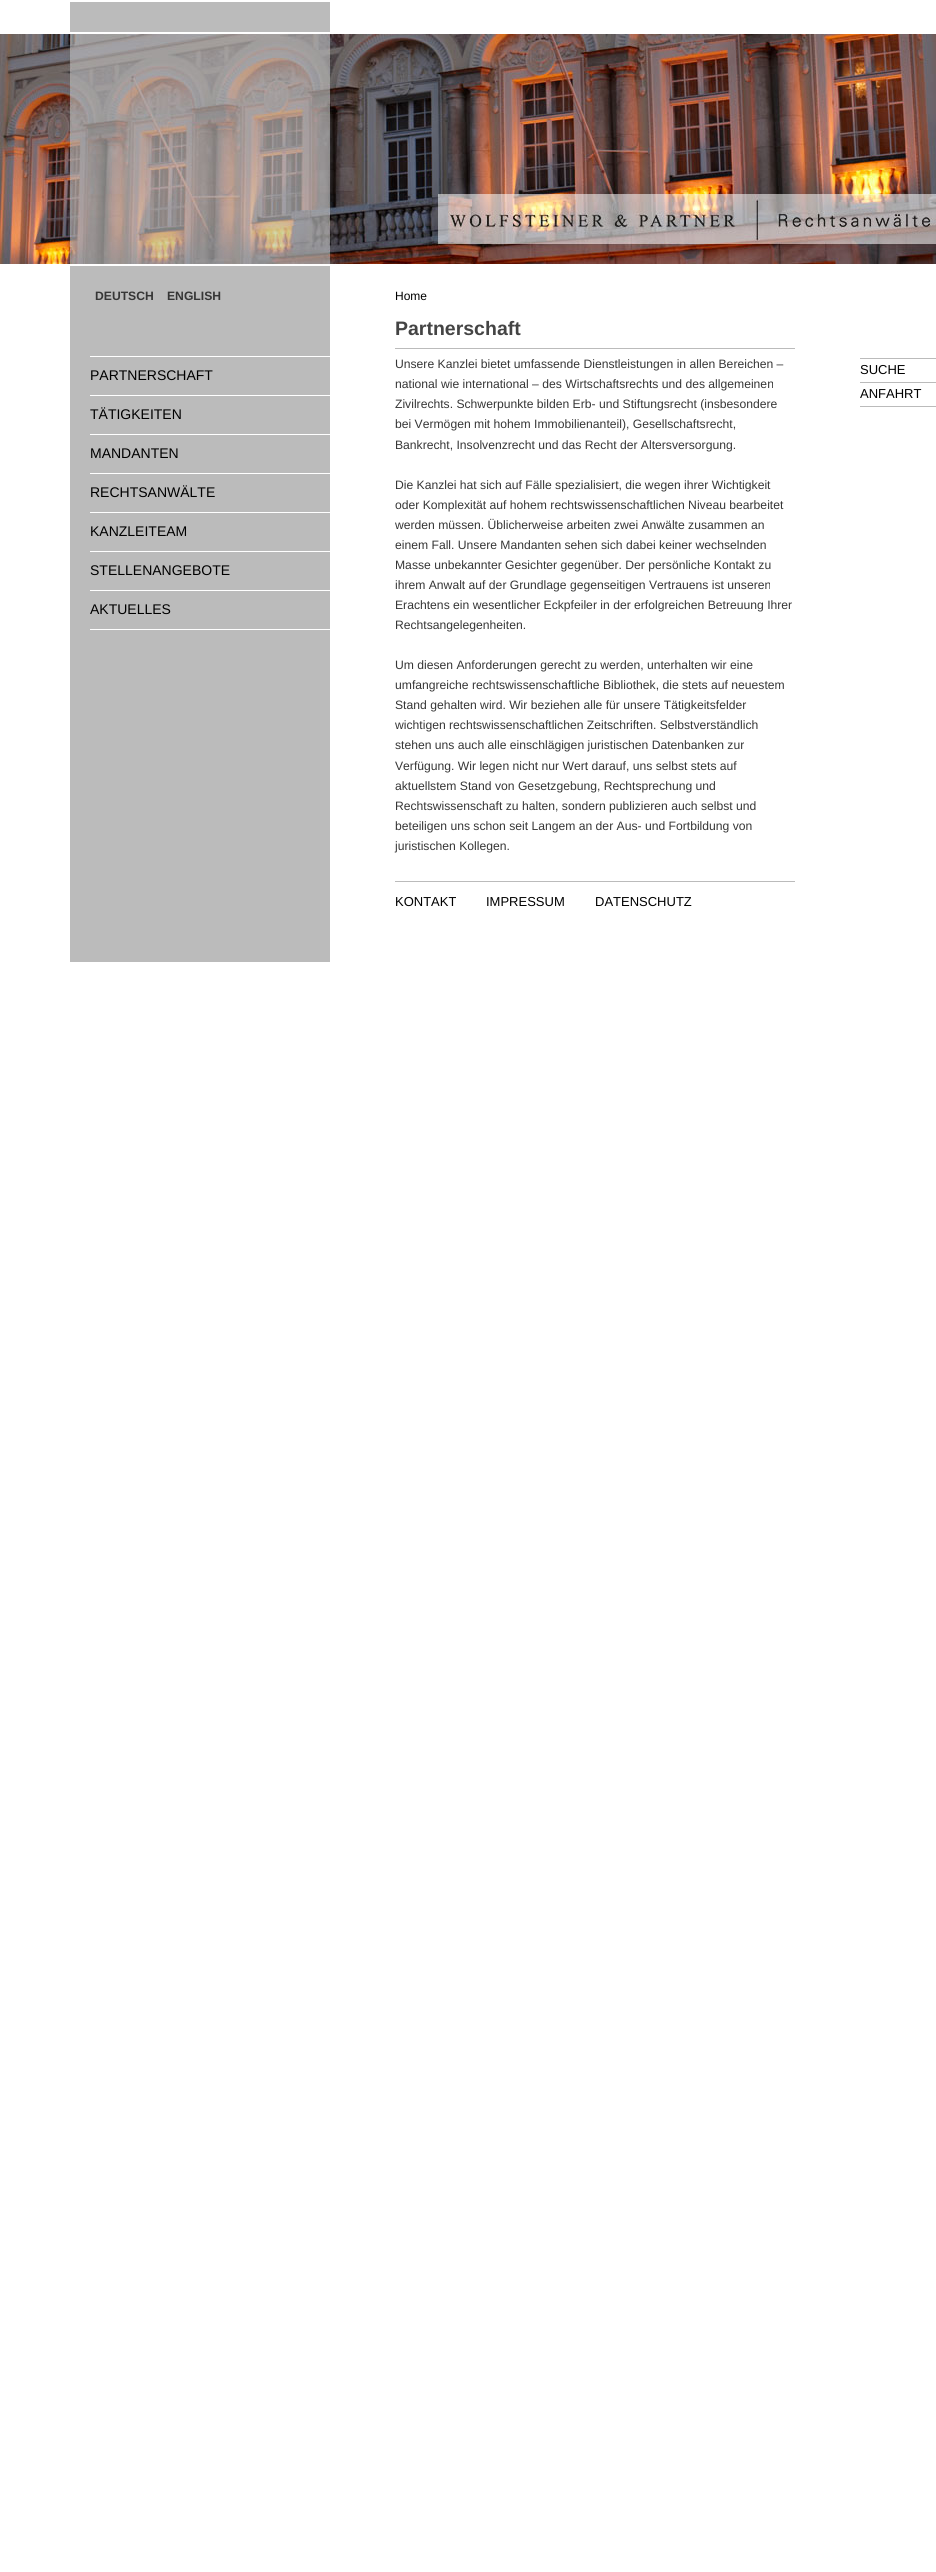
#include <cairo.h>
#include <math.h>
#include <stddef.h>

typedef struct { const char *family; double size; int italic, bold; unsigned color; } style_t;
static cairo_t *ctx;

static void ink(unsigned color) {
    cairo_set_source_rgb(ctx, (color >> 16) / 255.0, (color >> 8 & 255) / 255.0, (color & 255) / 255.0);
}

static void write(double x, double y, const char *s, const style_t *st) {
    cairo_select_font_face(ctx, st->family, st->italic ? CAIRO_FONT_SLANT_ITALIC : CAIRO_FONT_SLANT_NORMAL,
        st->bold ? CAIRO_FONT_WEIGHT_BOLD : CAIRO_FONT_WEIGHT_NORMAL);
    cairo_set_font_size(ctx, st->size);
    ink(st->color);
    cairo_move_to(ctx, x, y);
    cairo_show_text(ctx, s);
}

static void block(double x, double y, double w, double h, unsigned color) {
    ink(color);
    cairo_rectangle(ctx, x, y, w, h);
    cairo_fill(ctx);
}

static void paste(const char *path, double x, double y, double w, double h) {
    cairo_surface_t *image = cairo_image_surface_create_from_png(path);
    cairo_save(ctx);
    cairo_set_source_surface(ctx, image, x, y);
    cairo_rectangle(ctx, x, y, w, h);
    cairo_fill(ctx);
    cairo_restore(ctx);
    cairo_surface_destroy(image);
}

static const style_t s1 = {"Liberation Sans", 12.15, 0, 1, 0x363636};
static const style_t s2 = {"Liberation Sans", 14, 0, 0, 0x000000};
static const style_t s3 = {"Liberation Sans", 12, 0, 0, 0x000000};
static const style_t s4 = {"Liberation Sans", 19.5, 0, 1, 0x444444};
static const style_t s5 = {"Liberation Sans", 12.15, 0, 0, 0x363636};
static const style_t s6 = {"Liberation Sans", 13, 0, 0, 0x000000};

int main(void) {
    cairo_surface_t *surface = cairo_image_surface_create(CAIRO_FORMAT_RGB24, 936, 2572);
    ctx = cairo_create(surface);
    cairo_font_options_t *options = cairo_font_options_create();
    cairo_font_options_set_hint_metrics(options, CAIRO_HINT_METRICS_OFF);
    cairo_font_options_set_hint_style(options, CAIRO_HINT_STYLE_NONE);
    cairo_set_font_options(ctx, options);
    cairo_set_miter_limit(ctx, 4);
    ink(0xffffff);
    cairo_paint(ctx);
    block(70, 2, 260, 30, 0xbbbbbb);
    paste("pic1.png", 0, 34, 936, 230);
    block(70, 266, 260, 696, 0xbbbbbb);
    write(95, 300, "DEUTSCH", &s1);
    write(167, 300, "ENGLISH", &s1);
    block(90, 356, 240, 1, 0xffffff);
    write(90, 380, "PARTNERSCHAFT", &s2);
    block(90, 395, 240, 1, 0xffffff);
    write(90, 419, "TÄTIGKEITEN", &s2);
    block(90, 434, 240, 1, 0xffffff);
    write(90, 458, "MANDANTEN", &s2);
    block(90, 473, 240, 1, 0xffffff);
    write(90, 497, "RECHTSANWÄLTE", &s2);
    block(90, 512, 240, 1, 0xffffff);
    write(90, 536, "KANZLEITEAM", &s2);
    block(90, 551, 240, 1, 0xffffff);
    write(90, 575, "STELLENANGEBOTE", &s2);
    block(90, 590, 240, 1, 0xffffff);
    block(90, 629, 240, 1, 0xffffff);
    write(90, 614, "AKTUELLES", &s2);
    write(395, 300, "Home", &s3);
    block(395, 348, 400, 1, 0xbbbbbb);
    write(395, 335, "Partnerschaft", &s4);
    write(395, 368, "Unsere Kanzlei bietet umfassende Dienstleistungen in allen Bereichen –", &s5);
    write(395, 388, "national wie international – des Wirtschaftsrechts und des allgemeinen", &s5);
    write(395, 408, "Zivilrechts. Schwerpunkte bilden Erb- und Stiftungsrecht (insbesondere", &s5);
    write(395, 428, "bei Vermögen mit hohem Immobilienanteil), Gesellschaftsrecht,", &s5);
    write(395, 449, "Bankrecht, Insolvenzrecht und das Recht der Altersversorgung.", &s5);
    write(395, 489, "Die Kanzlei hat sich auf Fälle spezialisiert, die wegen ihrer Wichtigkeit", &s5);
    write(395, 509, "oder Komplexität auf hohem rechtswissenschaftlichen Niveau bearbeitet", &s5);
    write(395, 529, "werden müssen. Üblicherweise arbeiten zwei Anwälte zusammen an", &s5);
    write(395, 549, "einem Fall. Unsere Mandanten sehen sich dabei keiner wechselnden", &s5);
    write(395, 569, "Masse unbekannter Gesichter gegenüber. Der persönliche Kontakt zu", &s5);
    write(395, 589, "ihrem Anwalt auf der Grundlage gegenseitigen Vertrauens ist unseren", &s5);
    write(395, 609, "Erachtens ein wesentlicher Eckpfeiler in der erfolgreichen Betreuung Ihrer", &s5);
    write(395, 629, "Rechtsangelegenheiten.", &s5);
    write(395, 669, "Um diesen Anforderungen gerecht zu werden, unterhalten wir eine", &s5);
    write(395, 689, "umfangreiche rechtswissenschaftliche Bibliothek, die stets auf neuestem", &s5);
    write(395, 709, "Stand gehalten wird. Wir beziehen alle für unsere Tätigkeitsfelder", &s5);
    write(395, 729, "wichtigen rechtswissenschaftlichen Zeitschriften. Selbstverständlich", &s5);
    write(395, 749, "stehen uns auch alle einschlägigen juristischen Datenbanken zur", &s5);
    write(395, 770, "Verfügung. Wir legen nicht nur Wert darauf, uns selbst stets auf", &s5);
    write(395, 790, "aktuellstem Stand von Gesetzgebung, Rechtsprechung und", &s5);
    write(395, 810, "Rechtswissenschaft zu halten, sondern publizieren auch selbst und", &s5);
    write(395, 830, "beteiligen uns schon seit Langem an der Aus- und Fortbildung von", &s5);
    write(395, 850, "juristischen Kollegen.", &s5);
    block(395, 881, 400, 1, 0xbbbbbb);
    write(395, 906, "KONTAKT", &s6);
    write(486, 906, "IMPRESSUM", &s6);
    write(595, 906, "DATENSCHUTZ", &s6);
    block(860, 358, 76, 1, 0xbbbbbb);
    write(860, 374, "SUCHE", &s6);
    block(860, 382, 76, 1, 0xbbbbbb);
    block(860, 406, 76, 1, 0xbbbbbb);
    write(860, 398, "ANFAHRT", &s6);
    cairo_surface_write_to_png(surface, "screenshot.png");
    cairo_font_options_destroy(options);
    cairo_destroy(ctx);
    cairo_surface_destroy(surface);
    return 0;
}
